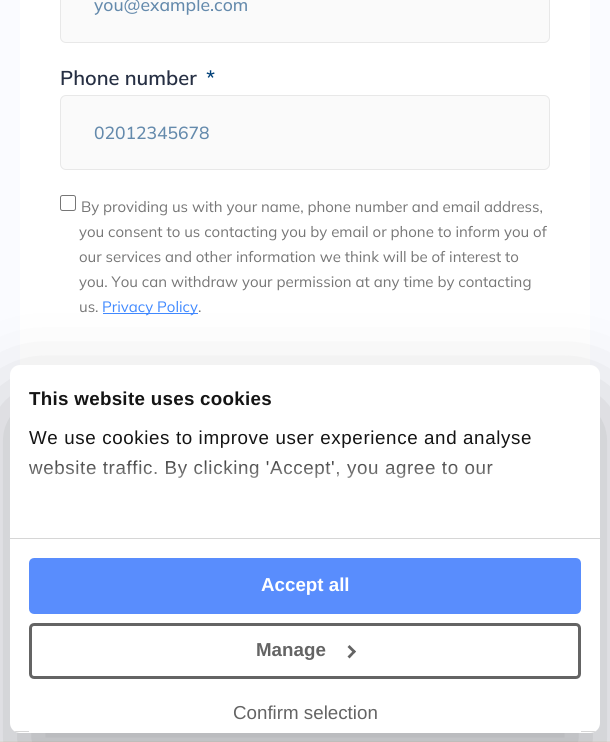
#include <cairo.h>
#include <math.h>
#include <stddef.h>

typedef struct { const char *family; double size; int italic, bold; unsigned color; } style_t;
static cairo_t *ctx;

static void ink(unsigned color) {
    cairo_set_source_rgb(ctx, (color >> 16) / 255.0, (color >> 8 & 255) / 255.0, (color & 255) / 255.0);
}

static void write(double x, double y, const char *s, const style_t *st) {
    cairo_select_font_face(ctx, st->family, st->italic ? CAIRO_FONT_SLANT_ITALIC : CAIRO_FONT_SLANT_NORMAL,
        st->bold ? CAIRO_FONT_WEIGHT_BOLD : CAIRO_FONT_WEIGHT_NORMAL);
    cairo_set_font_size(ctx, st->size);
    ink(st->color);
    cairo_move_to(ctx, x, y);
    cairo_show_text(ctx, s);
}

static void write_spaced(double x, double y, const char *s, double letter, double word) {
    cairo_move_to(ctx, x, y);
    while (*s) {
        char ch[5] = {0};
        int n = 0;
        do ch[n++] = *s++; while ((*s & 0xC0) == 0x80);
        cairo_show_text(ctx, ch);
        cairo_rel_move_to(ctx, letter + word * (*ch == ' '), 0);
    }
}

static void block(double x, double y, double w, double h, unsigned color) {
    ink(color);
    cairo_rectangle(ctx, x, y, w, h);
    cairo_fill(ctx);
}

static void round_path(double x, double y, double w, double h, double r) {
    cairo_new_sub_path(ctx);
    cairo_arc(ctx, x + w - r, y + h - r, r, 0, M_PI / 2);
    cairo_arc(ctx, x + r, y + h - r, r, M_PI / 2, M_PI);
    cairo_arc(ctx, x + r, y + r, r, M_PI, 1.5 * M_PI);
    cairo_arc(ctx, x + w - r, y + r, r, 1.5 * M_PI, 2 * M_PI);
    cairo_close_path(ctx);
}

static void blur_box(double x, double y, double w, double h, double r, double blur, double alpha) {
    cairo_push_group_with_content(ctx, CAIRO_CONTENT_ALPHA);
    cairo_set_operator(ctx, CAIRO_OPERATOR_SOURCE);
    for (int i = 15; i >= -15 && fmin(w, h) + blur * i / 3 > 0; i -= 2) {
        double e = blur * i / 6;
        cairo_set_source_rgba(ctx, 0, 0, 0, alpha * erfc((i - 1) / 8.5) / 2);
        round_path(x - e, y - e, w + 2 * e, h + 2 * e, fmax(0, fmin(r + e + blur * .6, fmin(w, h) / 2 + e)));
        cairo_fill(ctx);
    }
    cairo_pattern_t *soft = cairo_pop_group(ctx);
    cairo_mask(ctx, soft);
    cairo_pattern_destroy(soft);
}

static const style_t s1 = {"Mulish Medium", 17.5, 0, 0, 0x648aac};
static const style_t s2 = {"Mulish SemiBold", 20, 0, 0, 0x262f43};
static const style_t s3 = {"Mulish SemiBold", 20, 0, 0, 0x004078};
static const style_t s4 = {"Mulish", 15, 0, 0, 0x767676};
static const style_t s5 = {"Mulish", 15, 0, 0, 0x4089ff};
static const style_t s6 = {"Liberation Sans", 18.75, 0, 1, 0xffffff};
static const style_t s7 = {"Liberation Sans", 18.75, 0, 1, 0x646464};
static const style_t s8 = {"Liberation Sans", 18.75, 0, 0, 0x646464};

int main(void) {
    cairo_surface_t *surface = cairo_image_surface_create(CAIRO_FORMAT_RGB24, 610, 742);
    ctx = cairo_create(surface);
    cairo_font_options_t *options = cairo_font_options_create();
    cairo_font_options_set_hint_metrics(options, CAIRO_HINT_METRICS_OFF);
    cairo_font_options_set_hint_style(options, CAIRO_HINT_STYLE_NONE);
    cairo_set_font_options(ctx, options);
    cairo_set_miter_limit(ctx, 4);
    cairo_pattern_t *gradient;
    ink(0xfafbff);
    cairo_paint(ctx);
    block(20, 0, 570, 365, 0xffffff);
    ink(0xfafafa);
    round_path(60.5, -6.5, 489, 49, 5.5);
    cairo_fill_preserve(ctx);
    ink(0xe8e8e8);
    cairo_set_line_width(ctx, 1);
    cairo_stroke(ctx);
    write(94, 11, "you@example.com", &s1);
    write(60, 85, "Phone number", &s2);
    write(206, 85, "*", &s3);
    ink(0xfafafa);
    round_path(60.5, 95.5, 489, 74, 5.5);
    cairo_fill_preserve(ctx);
    ink(0xe8e8e8);
    cairo_stroke(ctx);
    write(94, 139, "02012345678", &s1);
    round_path(60.5, 195.5, 15, 15, 2);
    ink(0x767676);
    cairo_stroke(ctx);
    write(81, 212, "By providing us with your name, phone number and email address,", &s4);
    write(79, 237, "you consent to us contacting you by email or phone to inform you of", &s4);
    write(79, 262, "our services and other information we think will be of interest to", &s4);
    write(79, 287, "you. You can withdraw your permission at any time by contacting", &s4);
    write(79, 312, "us.", &s4);
    block(103, 313, 95, 1, 0x4089ff);
    write(102, 312, "Privacy Policy", &s5);
    write(198, 312, ".", &s4);
    block(0, 741, 610, 1, 0xf6f3ef);
    ink(0x000000);
    blur_box(10, 405, 590, 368, 10, 42.5, 0.3);
    ink(0xffffff);
    round_path(10, 365, 590, 368, 10);
    cairo_fill(ctx);
    block(10, 538, 590, 1, 0xd6d6d6);
    cairo_select_font_face(ctx, "Liberation Sans", CAIRO_FONT_SLANT_NORMAL, CAIRO_FONT_WEIGHT_BOLD);
    cairo_set_font_size(ctx, 18.75);
    ink(0x141414);
    write_spaced(29, 405, "This website uses cookies", 0.3, 0);
    cairo_select_font_face(ctx, "Liberation Sans", CAIRO_FONT_SLANT_NORMAL, CAIRO_FONT_WEIGHT_NORMAL);
    write_spaced(29, 444, "We use cookies to improve user experience and analyse", 0.62, 0);
    write_spaced(29, 474, "website traffic. By clicking 'Accept', you agree to our", 0.62, 0);
    gradient = cairo_pattern_create_linear(297, 538, 297, 451);
    cairo_pattern_add_color_stop_rgba(gradient, 0, 1, 1, 1, 1);
    cairo_pattern_add_color_stop_rgba(gradient, 0.5, 1, 1, 1, 0.8);
    cairo_pattern_add_color_stop_rgba(gradient, 1, 1, 1, 1, 0);
    cairo_set_source(ctx, gradient);
    cairo_pattern_destroy(gradient);
    cairo_rectangle(ctx, 28, 460, 465, 18);
    cairo_fill(ctx);
    cairo_save(ctx);
    round_path(10, 365, 590, 368, 10);
    cairo_clip(ctx);
    block(10, 731, 590, 1, 0xd6d6d6);
    cairo_restore(ctx);
    ink(0x598dfd);
    round_path(30.5, 559.5, 549, 53, 3.5);
    cairo_fill_preserve(ctx);
    cairo_set_line_width(ctx, 3);
    cairo_stroke(ctx);
    write(261, 591, "Accept all", &s6);
    round_path(30.5, 624.5, 549, 53, 3.5);
    ink(0x646464);
    cairo_stroke(ctx);
    write(256, 656, "Manage", &s7);
    cairo_new_path(ctx);
    cairo_move_to(ctx, 349.5, 645);
    cairo_line_to(ctx, 356, 651.5);
    cairo_line_to(ctx, 354, 653.5);
    cairo_line_to(ctx, 347.5, 647);
    cairo_close_path(ctx);
    cairo_fill(ctx);
    cairo_new_path(ctx);
    cairo_move_to(ctx, 354, 650);
    cairo_line_to(ctx, 356, 651.5);
    cairo_line_to(ctx, 349.5, 658.5);
    cairo_line_to(ctx, 347.5, 656.5);
    cairo_close_path(ctx);
    cairo_fill(ctx);
    ink(0xffffff);
    cairo_new_path(ctx);
    cairo_move_to(ctx, 34, 688);
    cairo_line_to(ctx, 576, 688);
    cairo_curve_to(ctx, 579, 688, 581, 690, 581, 693);
    cairo_line_to(ctx, 581, 733);
    cairo_line_to(ctx, 29, 733);
    cairo_line_to(ctx, 29, 693);
    cairo_curve_to(ctx, 29, 690, 31, 688, 34, 688);
    cairo_close_path(ctx);
    cairo_fill(ctx);
    write(233, 719, "Confirm selection", &s8);
    cairo_surface_write_to_png(surface, "screenshot.png");
    cairo_font_options_destroy(options);
    cairo_destroy(ctx);
    cairo_surface_destroy(surface);
    return 0;
}
